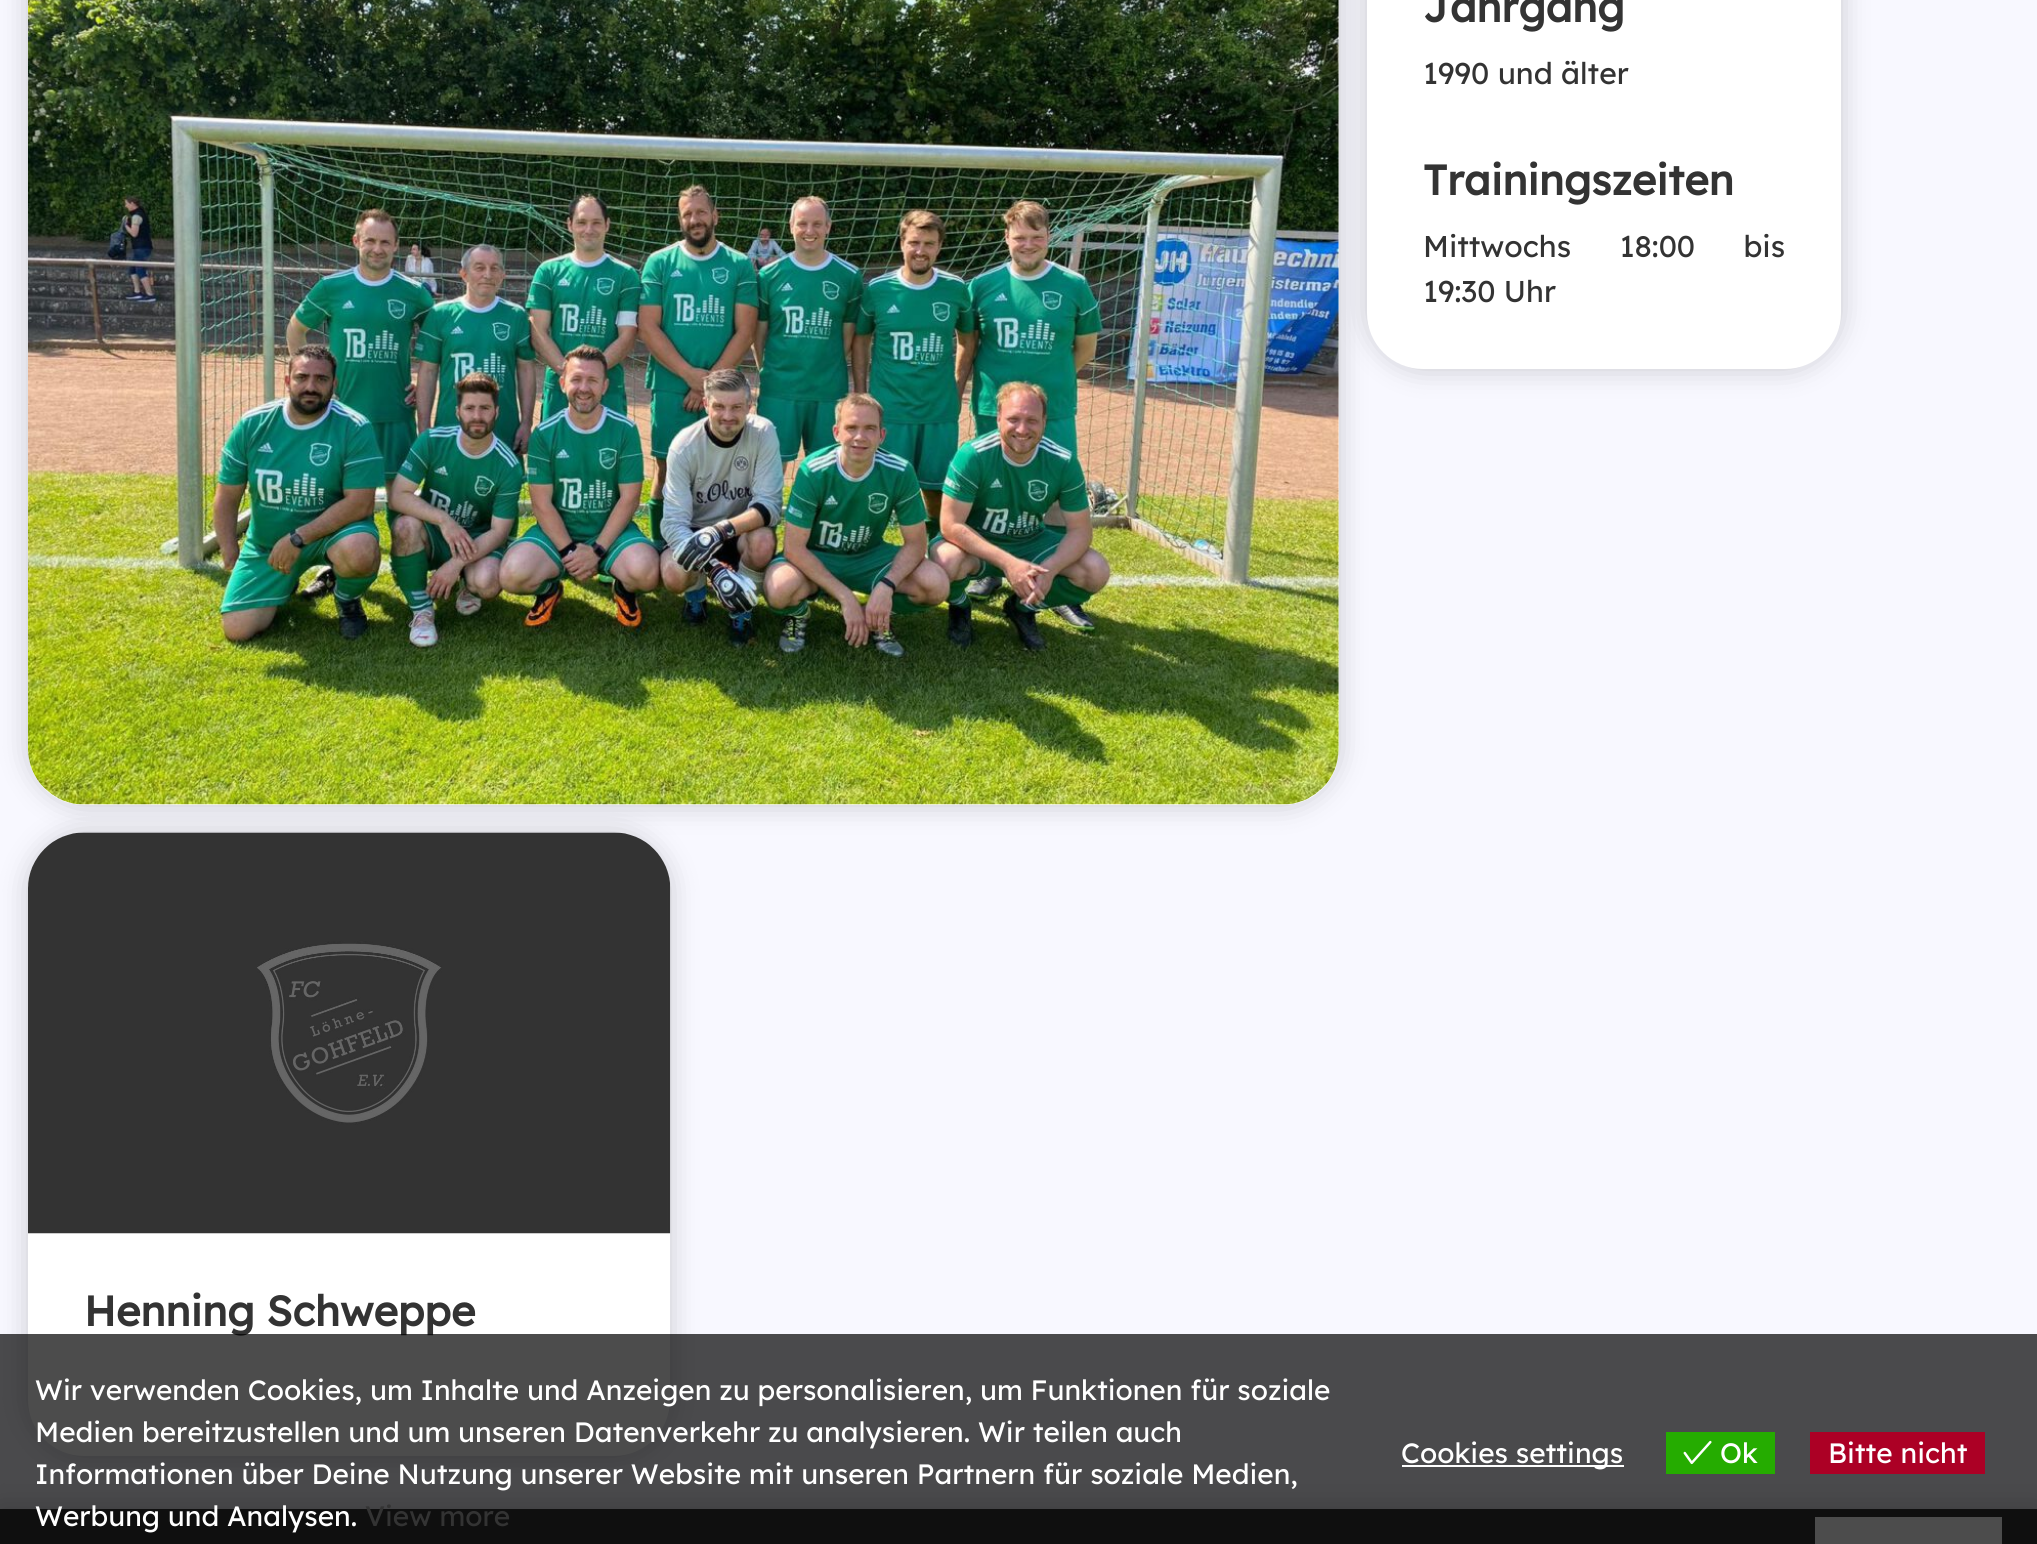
#include <cairo.h>
#include <math.h>
#include <stddef.h>

typedef struct { const char *family; double size; int italic, bold; unsigned color; } style_t;
static cairo_t *ctx;

static void ink(unsigned color) {
    cairo_set_source_rgb(ctx, (color >> 16) / 255.0, (color >> 8 & 255) / 255.0, (color & 255) / 255.0);
}

static void write(double x, double y, const char *s, const style_t *st) {
    cairo_select_font_face(ctx, st->family, st->italic ? CAIRO_FONT_SLANT_ITALIC : CAIRO_FONT_SLANT_NORMAL,
        st->bold ? CAIRO_FONT_WEIGHT_BOLD : CAIRO_FONT_WEIGHT_NORMAL);
    cairo_set_font_size(ctx, st->size);
    ink(st->color);
    cairo_move_to(ctx, x, y);
    cairo_show_text(ctx, s);
}

static void write_spaced(double x, double y, const char *s, double letter, double word) {
    cairo_move_to(ctx, x, y);
    while (*s) {
        char ch[5] = {0};
        int n = 0;
        do ch[n++] = *s++; while ((*s & 0xC0) == 0x80);
        cairo_show_text(ctx, ch);
        cairo_rel_move_to(ctx, letter + word * (*ch == ' '), 0);
    }
}

static void block(double x, double y, double w, double h, unsigned color) {
    ink(color);
    cairo_rectangle(ctx, x, y, w, h);
    cairo_fill(ctx);
}

static void round_path(double x, double y, double w, double h, double r) {
    cairo_new_sub_path(ctx);
    cairo_arc(ctx, x + w - r, y + h - r, r, 0, M_PI / 2);
    cairo_arc(ctx, x + r, y + h - r, r, M_PI / 2, M_PI);
    cairo_arc(ctx, x + r, y + r, r, M_PI, 1.5 * M_PI);
    cairo_arc(ctx, x + w - r, y + r, r, 1.5 * M_PI, 2 * M_PI);
    cairo_close_path(ctx);
}

static void blur_box(double x, double y, double w, double h, double r, double blur, double alpha) {
    cairo_push_group_with_content(ctx, CAIRO_CONTENT_ALPHA);
    cairo_set_operator(ctx, CAIRO_OPERATOR_SOURCE);
    for (int i = 15; i >= -15 && fmin(w, h) + blur * i / 3 > 0; i -= 2) {
        double e = blur * i / 6;
        cairo_set_source_rgba(ctx, 0, 0, 0, alpha * erfc((i - 1) / 8.5) / 2);
        round_path(x - e, y - e, w + 2 * e, h + 2 * e, fmax(0, fmin(r + e + blur * .6, fmin(w, h) / 2 + e)));
        cairo_fill(ctx);
    }
    cairo_pattern_t *soft = cairo_pop_group(ctx);
    cairo_mask(ctx, soft);
    cairo_pattern_destroy(soft);
}

static void paste(const char *path, double x, double y, double w, double h) {
    cairo_surface_t *image = cairo_image_surface_create_from_png(path);
    cairo_save(ctx);
    cairo_set_source_surface(ctx, image, x, y);
    cairo_rectangle(ctx, x, y, w, h);
    cairo_fill(ctx);
    cairo_restore(ctx);
    cairo_surface_destroy(image);
}

static const style_t s1 = {"Lexend", 42, 0, 1, 0x333333};
static const style_t s2 = {"Lexend", 30, 0, 0, 0x333333};
static const style_t s3 = {"Lexend", 28, 0, 0, 0xffffff};
static const style_t s4 = {"Lexend", 28, 0, 0, 0x333333};

int main(void) {
    cairo_surface_t *surface = cairo_image_surface_create(CAIRO_FORMAT_RGB24, 2037, 1544);
    ctx = cairo_create(surface);
    cairo_font_options_t *options = cairo_font_options_create();
    cairo_font_options_set_hint_metrics(options, CAIRO_HINT_METRICS_OFF);
    cairo_font_options_set_hint_style(options, CAIRO_HINT_STYLE_NONE);
    cairo_set_font_options(ctx, options);
    cairo_set_miter_limit(ctx, 4);
    ink(0xf8f8ff);
    cairo_paint(ctx);
    ink(0x000000);
    blur_box(28, -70, 1311, 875, 56, 14, 0.2);
    ink(0xffffff);
    round_path(28, -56, 1311, 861, 56);
    cairo_fill(ctx);
    paste("pic1.png", 28, 0, 1311, 805);
    ink(0x000000);
    blur_box(1367, -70, 474, 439, 56, 14, 0.2);
    ink(0xffffff);
    round_path(1367, -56, 474, 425, 56);
    cairo_fill(ctx);
    write(1423, 22, "Jahrgang", &s1);
    write(1423, 84, "1990 und älter", &s2);
    write(1423, 195, "Trainingszeiten", &s1);
    cairo_select_font_face(ctx, "Lexend", CAIRO_FONT_SLANT_NORMAL, CAIRO_FONT_WEIGHT_NORMAL);
    cairo_set_font_size(ctx, 30);
    write_spaced(1423, 257, "Mittwochs 18:00 bis", 0, 40);
    write(1423, 302, "19:30 Uhr", &s2);
    ink(0x000000);
    blur_box(28, 833, 642, 623, 56, 14, 0.2);
    ink(0xffffff);
    round_path(28, 833, 642, 623, 56);
    cairo_fill(ctx);
    paste("pic2.png", 28, 832, 643, 402);
    write(84, 1326, "Henning Schweppe", &s1);
    ink(0x000000);
    blur_box(0, 1509, 2037, 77, 0, 14, 0.2);
    block(0, 1509, 2037, 35, 0x333333);
    block(1815, 1517, 187, 27, 0xffffff);
    cairo_set_source_rgba(ctx, 0, 0, 0, 0.7);
    cairo_rectangle(ctx, 0, 1334, 2037, 210);
    cairo_fill(ctx);
    write(35, 1400, "Wir verwenden Cookies, um Inhalte und Anzeigen zu personalisieren, um Funktionen für soziale", &s3);
    write(35, 1442, "Medien bereitzustellen und um unseren Datenverkehr zu analysieren. Wir teilen auch", &s3);
    write(35, 1484, "Informationen über Deine Nutzung unserer Website mit unseren Partnern für soziale Medien,", &s3);
    write(35, 1526, "Werbung und Analysen.", &s3);
    write(365, 1526, "View more", &s4);
    block(1402, 1465, 222, 2, 0xffffff);
    write(1401, 1463, "Cookies settings", &s3);
    block(1666, 1432, 109, 42, 0x25ac00);
    paste("pic3.png", 1683, 1440, 29, 25);
    write(1720, 1463, "Ok", &s3);
    block(1810, 1432, 175, 42, 0xac0025);
    write(1828, 1463, "Bitte nicht", &s3);
    cairo_surface_write_to_png(surface, "screenshot.png");
    cairo_font_options_destroy(options);
    cairo_destroy(ctx);
    cairo_surface_destroy(surface);
    return 0;
}
